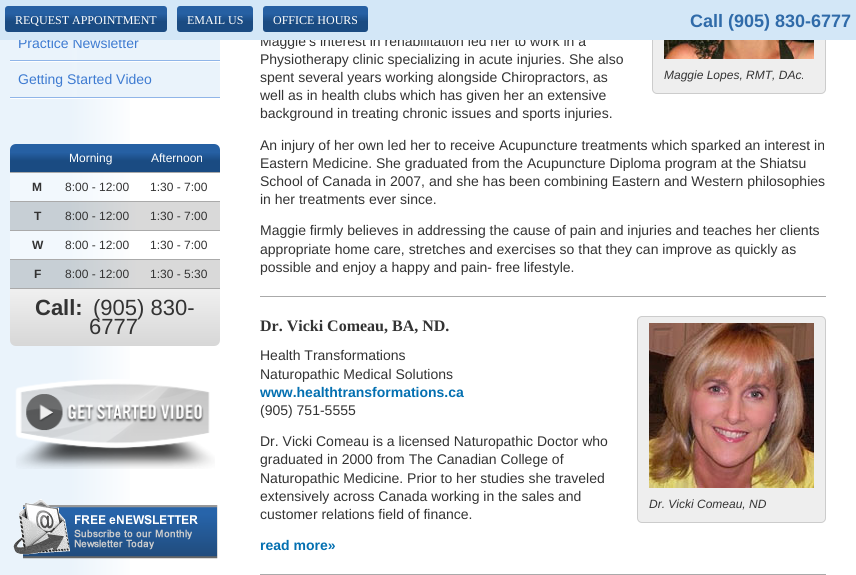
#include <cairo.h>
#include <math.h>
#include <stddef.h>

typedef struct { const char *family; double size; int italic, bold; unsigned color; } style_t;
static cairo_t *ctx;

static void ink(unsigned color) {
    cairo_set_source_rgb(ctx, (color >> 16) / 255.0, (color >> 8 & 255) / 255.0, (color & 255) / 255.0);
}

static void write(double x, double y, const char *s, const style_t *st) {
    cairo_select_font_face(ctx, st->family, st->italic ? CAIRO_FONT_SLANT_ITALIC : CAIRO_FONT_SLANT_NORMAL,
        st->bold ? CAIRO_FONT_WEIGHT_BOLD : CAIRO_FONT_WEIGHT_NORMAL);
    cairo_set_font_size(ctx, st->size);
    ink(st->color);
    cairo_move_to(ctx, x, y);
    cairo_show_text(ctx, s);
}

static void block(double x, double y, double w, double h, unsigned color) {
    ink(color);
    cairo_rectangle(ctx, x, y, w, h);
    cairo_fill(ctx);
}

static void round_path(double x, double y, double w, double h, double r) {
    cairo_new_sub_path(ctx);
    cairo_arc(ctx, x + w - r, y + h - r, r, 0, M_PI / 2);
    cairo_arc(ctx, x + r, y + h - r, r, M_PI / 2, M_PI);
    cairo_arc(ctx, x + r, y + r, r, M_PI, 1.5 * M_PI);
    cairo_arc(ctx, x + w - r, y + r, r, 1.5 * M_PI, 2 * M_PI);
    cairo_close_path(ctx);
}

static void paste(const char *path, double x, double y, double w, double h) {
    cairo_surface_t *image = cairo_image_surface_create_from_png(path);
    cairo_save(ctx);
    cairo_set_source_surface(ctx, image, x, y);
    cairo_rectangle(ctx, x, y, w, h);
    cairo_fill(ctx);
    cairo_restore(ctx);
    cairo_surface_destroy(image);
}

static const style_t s1 = {"Liberation Sans", 14, 0, 0, 0x3e7bd1};
static const style_t s2 = {"Liberation Sans", 14, 0, 0, 0x333333};
static const style_t s3 = {"Liberation Serif", 12, 0, 0, 0xffffff};
static const style_t s4 = {"Liberation Sans", 18, 0, 1, 0x306ba9};
static const style_t s5 = {"Liberation Sans", 12, 0, 0, 0xffffff};
static const style_t s6 = {"Liberation Sans", 12, 0, 1, 0x333333};
static const style_t s7 = {"Liberation Sans", 12, 0, 0, 0x333333};
static const style_t s8 = {"Liberation Sans", 22, 0, 1, 0x333333};
static const style_t s9 = {"Liberation Sans", 22, 0, 0, 0x333333};
static const style_t s10 = {"Liberation Sans", 12, 1, 0, 0x333333};
static const style_t s11 = {"Liberation Serif", 16, 0, 1, 0x333333};
static const style_t s12 = {"Liberation Sans", 14, 0, 1, 0x0470b1};

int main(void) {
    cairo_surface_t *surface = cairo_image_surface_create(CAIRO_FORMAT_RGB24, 856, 575);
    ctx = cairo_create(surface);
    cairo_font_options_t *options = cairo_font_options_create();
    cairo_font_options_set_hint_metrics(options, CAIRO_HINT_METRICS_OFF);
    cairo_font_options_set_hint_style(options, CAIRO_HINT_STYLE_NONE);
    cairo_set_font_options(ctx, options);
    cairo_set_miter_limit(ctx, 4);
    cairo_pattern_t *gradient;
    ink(0xffffff);
    cairo_paint(ctx);
    gradient = cairo_pattern_create_linear(0, 399, 230, 399);
    cairo_pattern_add_color_stop_rgba(gradient, 0.3, 0.918, 0.953, 0.984, 1);
    cairo_pattern_add_color_stop_rgba(gradient, 0.6, 1, 1, 1, 1);
    cairo_set_source(ctx, gradient);
    cairo_pattern_destroy(gradient);
    cairo_rectangle(ctx, 0, 40, 130, 535);
    cairo_fill(ctx);
    block(77, 40, 143, 57, 0xeaf3fb);
    write(18, 48, "Practice Newsletter", &s1);
    write(260, 46, "Maggie’s interest in rehabilitation led her to work in a", &s2);
    ink(0xeeeeee);
    round_path(652.5, -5.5, 173, 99, 4.5);
    cairo_fill_preserve(ctx);
    ink(0xcccccc);
    cairo_set_line_width(ctx, 1);
    cairo_stroke(ctx);
    block(0, 0, 856, 40, 0xd3e7f7);
    gradient = cairo_pattern_create_linear(86, 6, 86, 32);
    cairo_pattern_add_color_stop_rgba(gradient, 0.3, 0.149, 0.376, 0.639, 1);
    cairo_pattern_add_color_stop_rgba(gradient, 0.6, 0.102, 0.294, 0.51, 1);
    cairo_set_source(ctx, gradient);
    cairo_pattern_destroy(gradient);
    round_path(5, 6, 162, 26, 3);
    cairo_fill(ctx);
    write(15, 24, "REQUEST APPOINTMENT", &s3);
    gradient = cairo_pattern_create_linear(215, 6, 215, 32);
    cairo_pattern_add_color_stop_rgba(gradient, 0.3, 0.149, 0.376, 0.639, 1);
    cairo_pattern_add_color_stop_rgba(gradient, 0.6, 0.102, 0.294, 0.51, 1);
    cairo_set_source(ctx, gradient);
    cairo_pattern_destroy(gradient);
    round_path(177, 6, 76, 26, 3);
    cairo_fill(ctx);
    write(187, 24, "EMAIL US", &s3);
    gradient = cairo_pattern_create_linear(316, 6, 316, 32);
    cairo_pattern_add_color_stop_rgba(gradient, 0.3, 0.149, 0.376, 0.639, 1);
    cairo_pattern_add_color_stop_rgba(gradient, 0.6, 0.102, 0.294, 0.51, 1);
    cairo_set_source(ctx, gradient);
    cairo_pattern_destroy(gradient);
    round_path(263, 6, 105, 26, 3);
    cairo_fill(ctx);
    write(273, 24, "OFFICE HOURS", &s3);
    write(690, 27, "Call (905) 830-6777", &s4);
    gradient = cairo_pattern_create_linear(0, 399, 230, 399);
    cairo_pattern_add_color_stop_rgba(gradient, 0.3, 0.78, 0.812, 0.835, 1);
    cairo_pattern_add_color_stop_rgba(gradient, 0.6, 0.851, 0.851, 0.851, 1);
    cairo_set_source(ctx, gradient);
    cairo_pattern_destroy(gradient);
    cairo_rectangle(ctx, 10, 260, 210, 28);
    cairo_fill(ctx);
    gradient = cairo_pattern_create_linear(0, 399, 230, 399);
    cairo_pattern_add_color_stop_rgba(gradient, 0.3, 0.949, 0.973, 0.992, 1);
    cairo_pattern_add_color_stop_rgba(gradient, 0.6, 1, 1, 1, 1);
    cairo_set_source(ctx, gradient);
    cairo_pattern_destroy(gradient);
    cairo_rectangle(ctx, 10, 231, 110, 28);
    cairo_fill(ctx);
    gradient = cairo_pattern_create_linear(0, 399, 230, 399);
    cairo_pattern_add_color_stop_rgba(gradient, 0.3, 0.78, 0.812, 0.835, 1);
    cairo_pattern_add_color_stop_rgba(gradient, 0.6, 0.851, 0.851, 0.851, 1);
    cairo_set_source(ctx, gradient);
    cairo_pattern_destroy(gradient);
    cairo_rectangle(ctx, 10, 202, 210, 28);
    cairo_fill(ctx);
    gradient = cairo_pattern_create_linear(0, 399, 230, 399);
    cairo_pattern_add_color_stop_rgba(gradient, 0.3, 0.949, 0.973, 0.992, 1);
    cairo_pattern_add_color_stop_rgba(gradient, 0.6, 1, 1, 1, 1);
    cairo_set_source(ctx, gradient);
    cairo_pattern_destroy(gradient);
    cairo_rectangle(ctx, 10, 173, 110, 28);
    cairo_fill(ctx);
    block(10, 98, 120, 1, 0xffffff);
    block(10, 60, 210, 1, 0x90b5e8);
    block(10, 61, 210, 1, 0xffffff);
    block(10, 97, 210, 1, 0x90b5e8);
    write(18, 84, "Getting Started Video", &s1);
    gradient = cairo_pattern_create_linear(115, 144, 115, 172);
    cairo_pattern_add_color_stop_rgba(gradient, 0.3, 0.149, 0.376, 0.639, 1);
    cairo_pattern_add_color_stop_rgba(gradient, 0.6, 0.102, 0.294, 0.51, 1);
    cairo_set_source(ctx, gradient);
    cairo_pattern_destroy(gradient);
    cairo_new_path(ctx);
    cairo_move_to(ctx, 16, 144);
    cairo_line_to(ctx, 214, 144);
    cairo_curve_to(ctx, 217.5, 144, 220, 146.5, 220, 150);
    cairo_line_to(ctx, 220, 172);
    cairo_line_to(ctx, 10, 172);
    cairo_line_to(ctx, 10, 150);
    cairo_curve_to(ctx, 10, 146.5, 12.5, 144, 16, 144);
    cairo_close_path(ctx);
    cairo_fill(ctx);
    block(10, 172, 210, 1, 0xaaaaaa);
    write(69, 162, "Morning", &s5);
    write(151, 162, "Afternoon", &s5);
    block(10, 201, 210, 1, 0xaaaaaa);
    write(32, 191, "M", &s6);
    write(65, 191, "8:00 - 12:00", &s7);
    write(150, 191, "1:30 - 7:00", &s7);
    block(10, 230, 210, 1, 0xaaaaaa);
    write(34, 220, "T", &s6);
    write(65, 220, "8:00 - 12:00", &s7);
    write(150, 220, "1:30 - 7:00", &s7);
    block(10, 259, 210, 1, 0xaaaaaa);
    write(32, 249, "W", &s6);
    write(65, 249, "8:00 - 12:00", &s7);
    write(150, 249, "1:30 - 7:00", &s7);
    block(10, 288, 210, 1, 0xaaaaaa);
    write(34, 278, "F", &s6);
    write(65, 278, "8:00 - 12:00", &s7);
    write(150, 278, "1:30 - 5:30", &s7);
    gradient = cairo_pattern_create_linear(115, 289, 115, 346);
    cairo_pattern_add_color_stop_rgba(gradient, 0, 0.941, 0.941, 0.941, 1);
    cairo_pattern_add_color_stop_rgba(gradient, 1, 0.843, 0.843, 0.843, 1);
    cairo_set_source(ctx, gradient);
    cairo_pattern_destroy(gradient);
    cairo_new_path(ctx);
    cairo_move_to(ctx, 10, 289);
    cairo_line_to(ctx, 220, 289);
    cairo_line_to(ctx, 220, 340);
    cairo_curve_to(ctx, 220, 343.5, 217.5, 346, 214, 346);
    cairo_line_to(ctx, 16, 346);
    cairo_curve_to(ctx, 12.5, 346, 10, 343.5, 10, 340);
    cairo_close_path(ctx);
    cairo_fill(ctx);
    write(35, 315, "Call:", &s8);
    write(93, 315, "(905) 830-", &s9);
    write(89, 334, "6777", &s9);
    paste("pic1.png", 15, 379, 200, 90);
    paste("pic2.png", 13, 499, 205, 60);
    write(260, 64, "Physiotherapy clinic specializing in acute injuries. She also", &s2);
    write(260, 82, "spent several years working alongside Chiropractors, as", &s2);
    write(260, 100, "well as in health clubs which has given her an extensive", &s2);
    write(260, 118, "background in treating chronic issues and sports injuries.", &s2);
    paste("pic3.png", 664, 40, 150, 19);
    write(664, 79, "Maggie Lopes, RMT, DAc.", &s10);
    write(260, 150, "An injury of her own led her to receive Acupuncture treatments which sparked an interest in", &s2);
    write(260, 168, "Eastern Medicine. She graduated from the Acupuncture Diploma program at the Shiatsu", &s2);
    write(260, 186, "School of Canada in 2007, and she has been combining Eastern and Western philosophies", &s2);
    write(260, 204, "in her treatments ever since.", &s2);
    write(260, 235, "Maggie firmly believes in addressing the cause of pain and injuries and teaches her clients", &s2);
    write(260, 254, "appropriate home care, stretches and exercises so that they can improve as quickly as", &s2);
    write(260, 272, "possible and enjoy a happy and pain- free lifestyle.", &s2);
    block(260, 296, 566, 1, 0xaaaaaa);
    write(260, 331, "Dr. Vicki Comeau, BA, ND.", &s11);
    write(260, 360, "Health Transformations", &s2);
    write(260, 379, "Naturopathic Medical Solutions", &s2);
    write(260, 397, "www.healthtransformations.ca", &s12);
    write(260, 415, "(905) 751-5555", &s2);
    write(260, 446, "Dr. Vicki Comeau is a licensed Naturopathic Doctor who", &s2);
    write(260, 464, "graduated in 2000 from The Canadian College of", &s2);
    write(260, 483, "Naturopathic Medicine. Prior to her studies she traveled", &s2);
    write(260, 501, "extensively across Canada working in the sales and", &s2);
    write(260, 519, "customer relations field of finance.", &s2);
    ink(0xeeeeee);
    round_path(637.5, 316.5, 188, 206, 4.5);
    cairo_fill_preserve(ctx);
    ink(0xcccccc);
    cairo_stroke(ctx);
    paste("pic4.png", 649, 323, 165, 165);
    write(649, 508, "Dr. Vicki Comeau, ND", &s10);
    write(260, 550, "read more»", &s12);
    block(260, 574, 566, 1, 0xaaaaaa);
    cairo_surface_write_to_png(surface, "screenshot.png");
    cairo_font_options_destroy(options);
    cairo_destroy(ctx);
    cairo_surface_destroy(surface);
    return 0;
}
